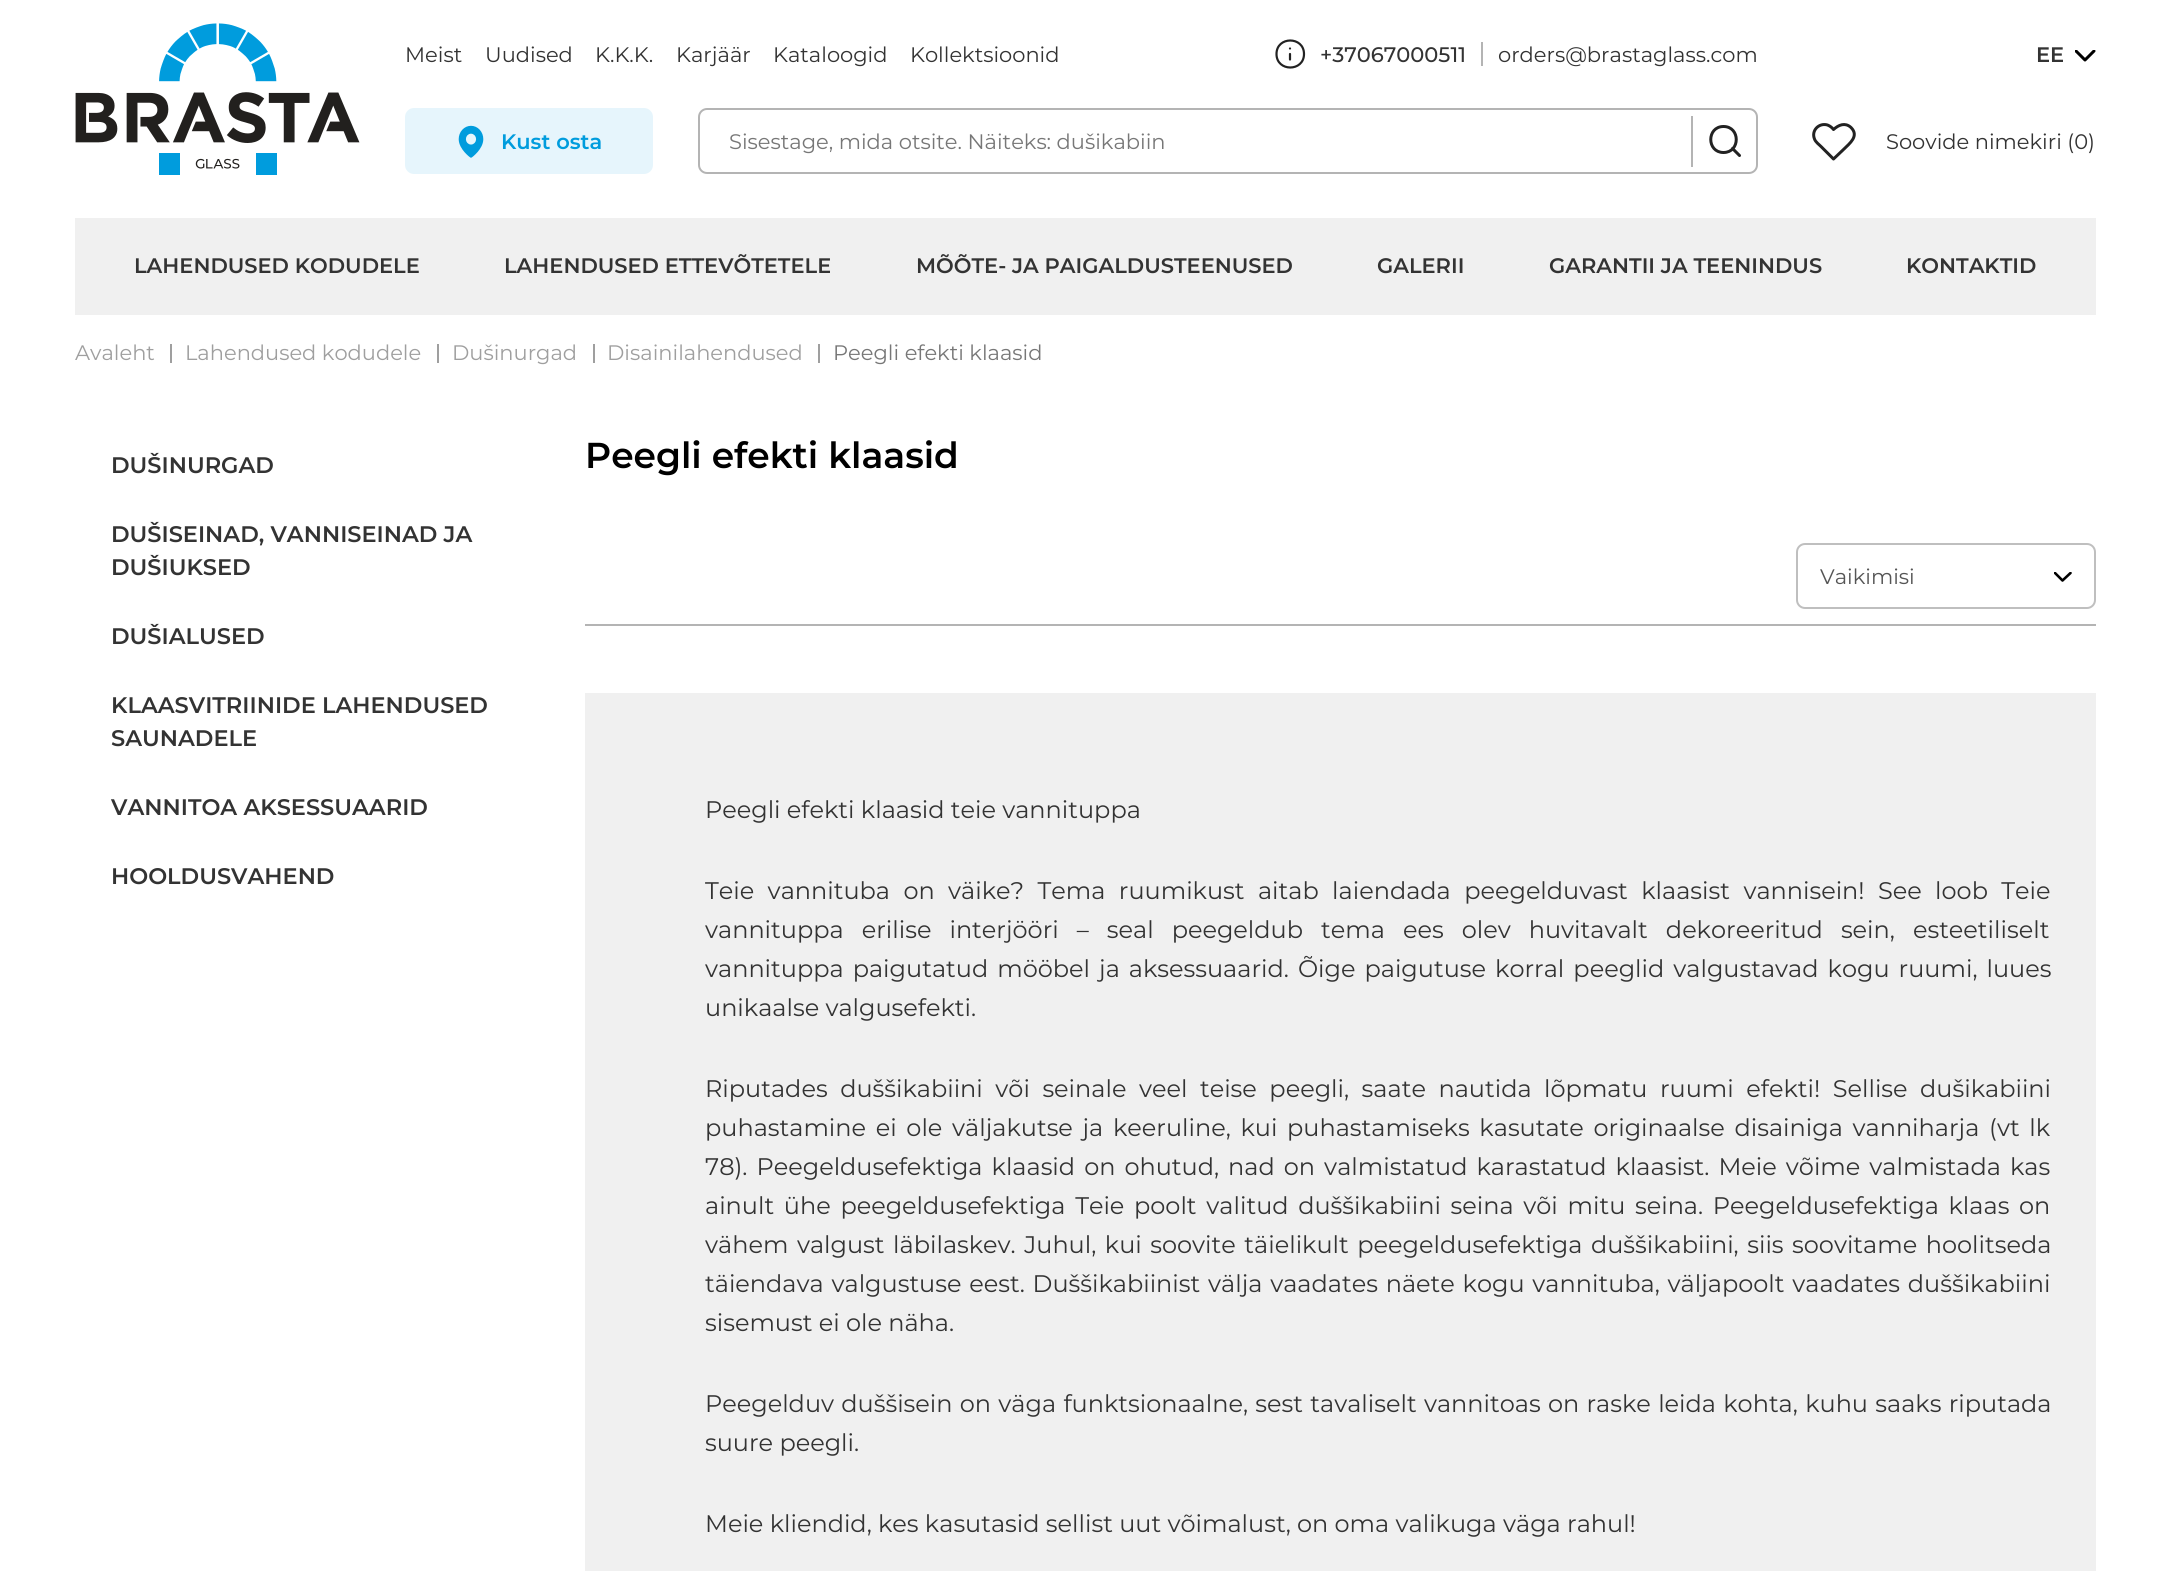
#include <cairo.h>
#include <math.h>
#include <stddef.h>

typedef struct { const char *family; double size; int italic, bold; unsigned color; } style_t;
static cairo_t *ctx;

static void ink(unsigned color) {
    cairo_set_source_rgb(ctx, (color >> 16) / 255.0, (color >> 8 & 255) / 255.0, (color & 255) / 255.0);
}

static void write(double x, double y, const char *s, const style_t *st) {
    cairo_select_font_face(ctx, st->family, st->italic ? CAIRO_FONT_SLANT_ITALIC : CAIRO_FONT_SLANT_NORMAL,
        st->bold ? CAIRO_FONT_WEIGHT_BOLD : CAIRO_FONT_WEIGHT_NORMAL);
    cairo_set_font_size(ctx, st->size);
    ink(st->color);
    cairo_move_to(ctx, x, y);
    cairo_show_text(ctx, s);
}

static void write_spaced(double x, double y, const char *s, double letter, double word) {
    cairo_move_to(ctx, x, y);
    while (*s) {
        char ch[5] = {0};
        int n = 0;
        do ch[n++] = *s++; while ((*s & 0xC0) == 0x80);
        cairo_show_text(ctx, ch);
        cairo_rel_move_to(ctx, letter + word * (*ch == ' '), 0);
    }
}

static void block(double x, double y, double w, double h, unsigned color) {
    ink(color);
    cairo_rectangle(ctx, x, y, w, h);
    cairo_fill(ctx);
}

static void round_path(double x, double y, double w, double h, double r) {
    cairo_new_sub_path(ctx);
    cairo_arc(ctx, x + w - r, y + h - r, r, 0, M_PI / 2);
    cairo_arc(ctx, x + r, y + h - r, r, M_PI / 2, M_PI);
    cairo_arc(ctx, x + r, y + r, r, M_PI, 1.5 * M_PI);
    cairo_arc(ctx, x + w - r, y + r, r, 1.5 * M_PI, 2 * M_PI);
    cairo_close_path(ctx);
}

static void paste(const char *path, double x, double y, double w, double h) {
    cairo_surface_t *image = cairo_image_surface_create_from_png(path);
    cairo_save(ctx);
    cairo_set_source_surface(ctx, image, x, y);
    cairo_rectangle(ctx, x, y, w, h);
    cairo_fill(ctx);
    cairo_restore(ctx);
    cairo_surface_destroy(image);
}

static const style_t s1 = {"Montserrat", 21, 0, 0, 0x333333};
static const style_t s2 = {"Montserrat Medium", 21, 0, 0, 0x333333};
static const style_t s3 = {"Montserrat SemiBold", 21, 0, 0, 0x333333};
static const style_t s4 = {"Montserrat SemiBold", 21, 0, 0, 0x009cdd};
static const style_t s5 = {"Montserrat", 21, 0, 0, 0x777777};
static const style_t s6 = {"Montserrat", 21, 0, 0, 0x9f9f9f};
static const style_t s7 = {"Montserrat SemiBold", 22.5, 0, 0, 0x333333};
static const style_t s8 = {"Montserrat SemiBold", 36, 0, 0, 0x000000};
static const style_t s9 = {"Montserrat", 21, 0, 0, 0x555555};
static const style_t s10 = {"Montserrat", 24, 0, 0, 0x333333};

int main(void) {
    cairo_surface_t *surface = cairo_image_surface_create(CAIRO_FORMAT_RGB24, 2170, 1571);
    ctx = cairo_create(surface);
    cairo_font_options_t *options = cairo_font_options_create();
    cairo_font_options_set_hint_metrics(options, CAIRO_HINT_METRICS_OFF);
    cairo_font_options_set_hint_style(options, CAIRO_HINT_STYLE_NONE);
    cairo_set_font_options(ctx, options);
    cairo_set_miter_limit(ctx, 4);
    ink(0xffffff);
    cairo_paint(ctx);
    paste("pic1.png", 75, 23, 285, 152);
    write(405, 62, "Meist", &s1);
    write(485, 62, "Uudised", &s1);
    write(595, 62, "K.K.K.", &s1);
    write(676, 62, "Karjäär", &s1);
    write(773, 62, "Kataloogid", &s1);
    write(910, 62, "Kollektsioonid", &s1);
    cairo_new_path(ctx);
    cairo_move_to(ctx, 1290, 59.5);
    cairo_line_to(ctx, 1290, 54);
    cairo_move_to(ctx, 1290, 48.5);
    cairo_line_to(ctx, 1290, 48.5);
    cairo_move_to(ctx, 1304, 54);
    cairo_curve_to(ctx, 1304, 72, 1276.5, 72, 1276.5, 54);
    cairo_curve_to(ctx, 1276.5, 36, 1304, 36, 1304, 54);
    cairo_close_path(ctx);
    ink(0x222222);
    cairo_set_line_width(ctx, 2.2);
    cairo_set_line_cap(ctx, CAIRO_LINE_CAP_ROUND);
    cairo_set_line_join(ctx, CAIRO_LINE_JOIN_ROUND);
    cairo_stroke(ctx);
    write(1320, 62, "+37067000511", &s2);
    block(1481, 42, 2, 24, 0xb4b4b4);
    write(1498, 62, "orders@brastaglass.com", &s1);
    write(2036, 62, "EE", &s3);
    cairo_save(ctx);
    cairo_rectangle(ctx, 2075, 50, 21, 12);
    cairo_clip(ctx);
    cairo_new_path(ctx);
    cairo_move_to(ctx, 2076, 51);
    cairo_line_to(ctx, 2085, 60);
    cairo_line_to(ctx, 2094, 51);
    ink(0x000000);
    cairo_set_line_width(ctx, 3);
    cairo_stroke(ctx);
    cairo_restore(ctx);
    ink(0xe6f5fc);
    round_path(405, 108, 248, 66, 9);
    cairo_fill(ctx);
    paste("pic2.png", 458, 125, 26, 33);
    write(501, 149, "Kust osta", &s4);
    round_path(699, 109, 1058, 64, 8);
    ink(0xb4b4b4);
    cairo_set_line_width(ctx, 2);
    cairo_set_line_cap(ctx, CAIRO_LINE_CAP_BUTT);
    cairo_set_line_join(ctx, CAIRO_LINE_JOIN_MITER);
    cairo_stroke(ctx);
    write(729, 149, "Sisestage, mida otsite. Näiteks: dušikabiin", &s5);
    cairo_new_path(ctx);
    cairo_move_to(ctx, 1723.5, 152.5);
    cairo_curve_to(ctx, 1740.5, 152.5, 1740.5, 126.5, 1723.5, 126.5);
    cairo_curve_to(ctx, 1706.5, 126.5, 1706.5, 152.5, 1723.5, 152.5);
    cairo_close_path(ctx);
    cairo_move_to(ctx, 1739.5, 155.5);
    cairo_line_to(ctx, 1732.5, 148.5);
    ink(0x222222);
    cairo_set_line_width(ctx, 3);
    cairo_set_line_cap(ctx, CAIRO_LINE_CAP_ROUND);
    cairo_set_line_join(ctx, CAIRO_LINE_JOIN_ROUND);
    cairo_stroke(ctx);
    block(1691, 116, 2, 51, 0xb4b4b4);
    cairo_new_path(ctx);
    cairo_move_to(ctx, 1851, 127.5);
    cairo_curve_to(ctx, 1845, 122, 1838.5, 125, 1833.5, 129.5);
    cairo_curve_to(ctx, 1832, 127.5, 1830, 126, 1827.5, 125);
    cairo_curve_to(ctx, 1819, 122.5, 1811, 130.5, 1814.5, 139);
    cairo_curve_to(ctx, 1815.5, 142, 1819, 144.5, 1821, 146.5);
    cairo_line_to(ctx, 1833.5, 159);
    cairo_line_to(ctx, 1844, 149);
    cairo_curve_to(ctx, 1849.5, 143.5, 1859.5, 136, 1851, 127.5);
    cairo_close_path(ctx);
    ink(0x222222);
    cairo_stroke(ctx);
    write(1886, 149, "Soovide nimekiri (0)", &s1);
    block(75, 218, 2021, 97, 0xf0f0f0);
    write(134, 273, "LAHENDUSED KODUDELE", &s3);
    write(504, 273, "LAHENDUSED ETTEVÕTETELE", &s3);
    write(916, 273, "MÕÕTE- JA PAIGALDUSTEENUSED", &s3);
    write(1377, 273, "GALERII", &s3);
    write(1549, 273, "GARANTII JA TEENINDUS", &s3);
    write(1906, 273, "KONTAKTID", &s3);
    write(75, 360, "Avaleht", &s6);
    block(170, 344, 2, 19, 0x9f9f9f);
    write(185, 360, "Lahendused kodudele", &s6);
    block(437, 344, 2, 19, 0x9f9f9f);
    write(452, 360, "Dušinurgad", &s6);
    block(593, 344, 2, 19, 0x9f9f9f);
    write(607, 360, "Disainilahendused", &s6);
    block(818, 344, 2, 19, 0x9f9f9f);
    write(833, 360, "Peegli efekti klaasid", &s5);
    write(111, 473, "DUŠINURGAD", &s7);
    write(111, 542, "DUŠISEINAD, VANNISEINAD JA", &s7);
    write(111, 575, "DUŠIUKSED", &s7);
    write(111, 644, "DUŠIALUSED", &s7);
    write(111, 713, "KLAASVITRIINIDE LAHENDUSED", &s7);
    write(111, 746, "SAUNADELE", &s7);
    write(111, 815, "VANNITOA AKSESSUAARID", &s7);
    write(111, 884, "HOOLDUSVAHEND", &s7);
    write(585, 468, "Peegli efekti klaasid", &s8);
    block(585, 624, 1511, 2, 0xb4b4b4);
    cairo_save(ctx);
    cairo_rectangle(ctx, 2054, 572, 18, 10);
    cairo_clip(ctx);
    cairo_new_path(ctx);
    cairo_move_to(ctx, 2055, 573);
    cairo_line_to(ctx, 2062.5, 580.5);
    cairo_line_to(ctx, 2070.5, 573);
    ink(0x000000);
    cairo_set_line_width(ctx, 2.6);
    cairo_stroke(ctx);
    cairo_restore(ctx);
    round_path(1797, 544, 298, 64, 8);
    ink(0xbfbfbf);
    cairo_set_line_width(ctx, 2);
    cairo_set_line_cap(ctx, CAIRO_LINE_CAP_BUTT);
    cairo_set_line_join(ctx, CAIRO_LINE_JOIN_MITER);
    cairo_stroke(ctx);
    write(1820, 584, "Vaikimisi", &s9);
    block(585, 693, 1511, 878, 0xf0f0f0);
    write(705, 818, "Peegli efekti klaasid teie vannituppa", &s10);
    write_spaced(705, 899, "Teie vannituba on väike? Tema ruumikust aitab laiendada peegelduvast klaasist vannisein! See loob Teie", 0, 7.1);
    write_spaced(705, 938, "vannituppa erilise interjööri – seal peegeldub tema ees olev huvitavalt dekoreeritud sein, esteetiliselt", 0, 11.75);
    write_spaced(705, 977, "vannituppa paigutatud mööbel ja aksessuaarid. Õige paigutuse korral peeglid valgustavad kogu ruumi, luues", 0, 2.75);
    write(705, 1016, "unikaalse valgusefekti.", &s10);
    write_spaced(705, 1097, "Riputades duššikabiini või seinale veel teise peegli, saate nautida lõpmatu ruumi efekti! Sellise dušikabiini", 0, 6.25);
    write_spaced(705, 1136, "puhastamine ei ole väljakutse ja keeruline, kui puhastamiseks kasutate originaalse disainiga vanniharja (vt lk", 0, 3.4);
    write_spaced(705, 1175, "78). Peegeldusefektiga klaasid on ohutud, nad on valmistatud karastatud klaasist. Meie võime valmistada kas", 0, 2.75);
    write_spaced(705, 1214, "ainult ühe peegeldusefektiga Teie poolt valitud duššikabiini seina või mitu seina. Peegeldusefektiga klaas on", 0, 3.4);
    write_spaced(705, 1253, "vähem valgust läbilaskev. Juhul, kui soovite täielikult peegeldusefektiga duššikabiini, siis soovitame hoolitseda", 0, 2.25);
    write_spaced(705, 1292, "täiendava valgustuse eest. Duššikabiinist välja vaadates näete kogu vannituba, väljapoolt vaadates duššikabiini", 0, 1.5);
    write(705, 1331, "sisemust ei ole näha.", &s10);
    write_spaced(705, 1412, "Peegelduv duššisein on väga funktsionaalne, sest tavaliselt vannitoas on raske leida kohta, kuhu saaks riputada", 0, 1);
    write(705, 1451, "suure peegli.", &s10);
    write(705, 1532, "Meie kliendid, kes kasutasid sellist uut võimalust, on oma valikuga väga rahul!", &s10);
    cairo_surface_write_to_png(surface, "screenshot.png");
    cairo_font_options_destroy(options);
    cairo_destroy(ctx);
    cairo_surface_destroy(surface);
    return 0;
}
